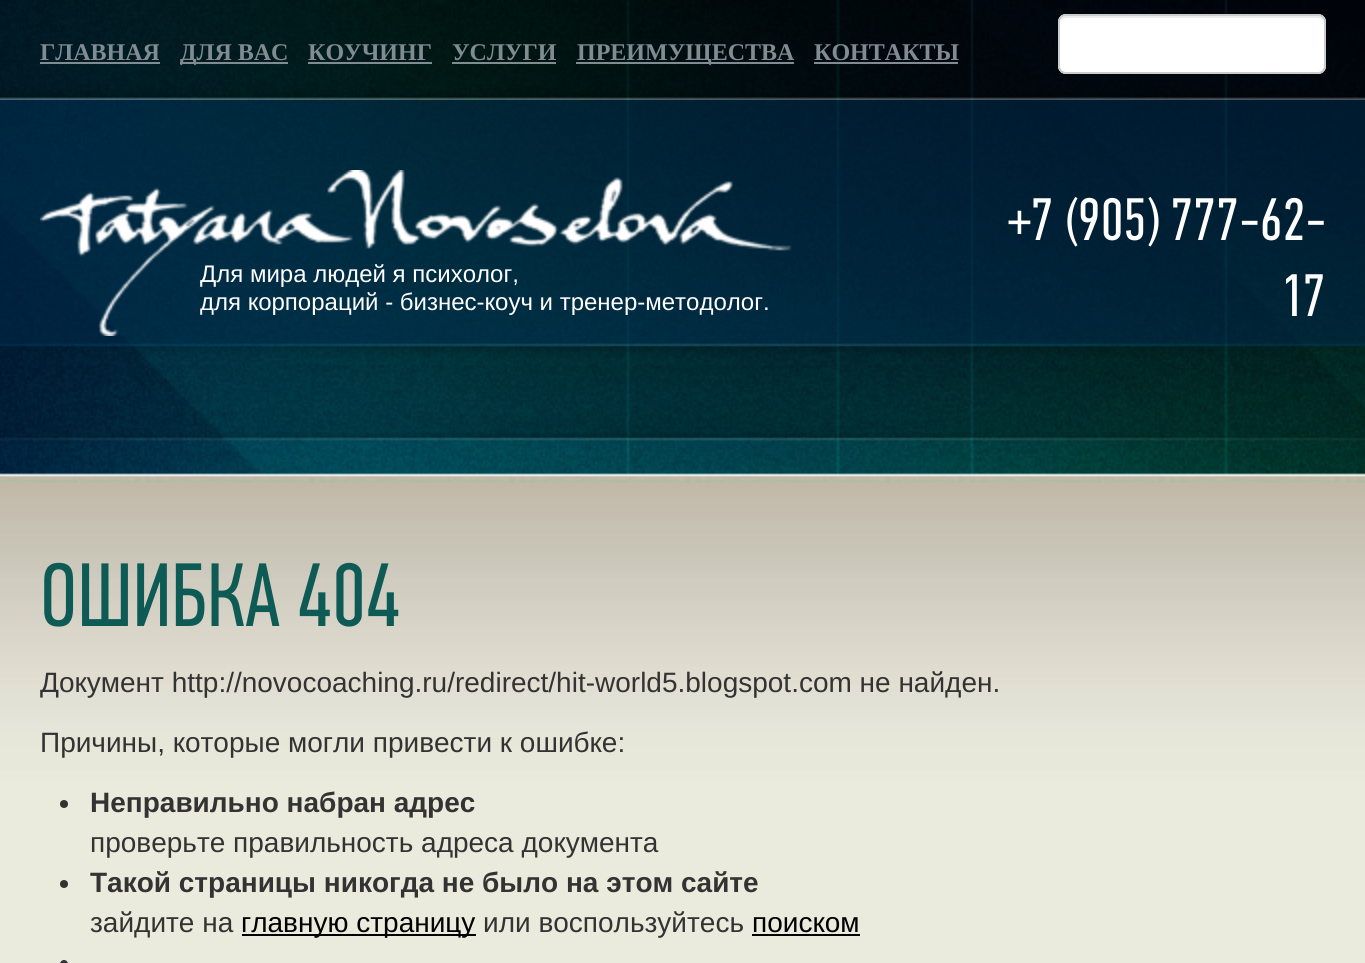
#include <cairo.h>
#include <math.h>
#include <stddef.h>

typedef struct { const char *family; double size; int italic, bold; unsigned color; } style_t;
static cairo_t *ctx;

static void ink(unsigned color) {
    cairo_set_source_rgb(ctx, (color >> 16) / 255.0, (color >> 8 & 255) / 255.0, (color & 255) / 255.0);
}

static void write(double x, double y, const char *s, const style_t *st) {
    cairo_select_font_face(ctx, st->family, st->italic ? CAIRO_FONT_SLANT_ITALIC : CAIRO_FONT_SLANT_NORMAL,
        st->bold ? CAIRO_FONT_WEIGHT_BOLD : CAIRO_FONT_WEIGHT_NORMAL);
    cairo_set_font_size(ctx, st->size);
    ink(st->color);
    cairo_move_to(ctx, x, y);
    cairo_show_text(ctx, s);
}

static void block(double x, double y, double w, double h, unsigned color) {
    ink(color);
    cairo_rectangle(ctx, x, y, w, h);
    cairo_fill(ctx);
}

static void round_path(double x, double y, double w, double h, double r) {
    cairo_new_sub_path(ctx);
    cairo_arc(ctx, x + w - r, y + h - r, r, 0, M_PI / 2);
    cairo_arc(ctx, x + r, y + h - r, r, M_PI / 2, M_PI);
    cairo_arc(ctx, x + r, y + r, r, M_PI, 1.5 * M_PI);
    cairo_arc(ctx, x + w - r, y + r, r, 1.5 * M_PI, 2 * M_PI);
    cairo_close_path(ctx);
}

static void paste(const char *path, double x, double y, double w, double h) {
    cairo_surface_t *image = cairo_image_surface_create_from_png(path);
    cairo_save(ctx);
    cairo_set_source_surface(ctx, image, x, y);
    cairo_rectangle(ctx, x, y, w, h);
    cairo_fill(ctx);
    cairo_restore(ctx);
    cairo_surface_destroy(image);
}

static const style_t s1 = {"Liberation Serif", 24, 0, 1, 0x818b92};
static const style_t s2 = {"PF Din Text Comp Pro", 60, 0, 0, 0xffffff};
static const style_t s3 = {"Liberation Sans", 24, 0, 0, 0xffffff};
static const style_t s4 = {"PF Din Text Comp Pro", 90, 0, 0, 0x0e5b56};
static const style_t s5 = {"Liberation Sans", 28, 0, 0, 0x333333};
static const style_t s6 = {"Liberation Sans", 28, 0, 1, 0x333333};
static const style_t s7 = {"Liberation Sans", 28, 0, 0, 0x000000};

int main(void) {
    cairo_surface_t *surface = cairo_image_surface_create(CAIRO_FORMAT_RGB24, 1365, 963);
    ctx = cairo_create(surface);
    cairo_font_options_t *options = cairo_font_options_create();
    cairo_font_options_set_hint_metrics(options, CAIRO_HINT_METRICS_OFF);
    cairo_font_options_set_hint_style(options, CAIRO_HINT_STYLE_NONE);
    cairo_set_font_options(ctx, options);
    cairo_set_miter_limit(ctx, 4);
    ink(0xffffff);
    cairo_paint(ctx);
    paste("pic1.png", 0, 0, 1365, 475);
    paste("pic2.png", 0, 0, 1365, 100);
    write(40, 60, "ГЛАВНАЯ", &s1);
    block(40, 62, 120, 2, 0x818b92);
    block(180, 62, 108, 2, 0x818b92);
    write(180, 60, "ДЛЯ ВАС", &s1);
    write(308, 60, "КОУЧИНГ", &s1);
    block(308, 62, 124, 2, 0x818b92);
    write(452, 60, "УСЛУГИ", &s1);
    block(452, 62, 104, 2, 0x818b92);
    block(576, 62, 218, 2, 0x818b92);
    write(577, 60, "ПРЕИМУЩЕСТВА", &s1);
    write(814, 60, "КОНТАКТЫ", &s1);
    block(814, 62, 144, 2, 0x818b92);
    ink(0xffffff);
    round_path(1058, 14, 268, 60, 8);
    cairo_fill(ctx);
    ink(0xececec);
    cairo_new_path(ctx);
    cairo_move_to(ctx, 1066, 18);
    cairo_line_to(ctx, 1318, 18);
    cairo_curve_to(ctx, 1321, 18, 1324, 21, 1324, 24);
    cairo_curve_to(ctx, 1324, 21, 1323, 17, 1319, 16);
    cairo_line_to(ctx, 1065, 16);
    cairo_curve_to(ctx, 1061, 17, 1060, 21, 1060, 24);
    cairo_curve_to(ctx, 1060, 21, 1063, 18, 1066, 18);
    cairo_close_path(ctx);
    cairo_fill(ctx);
    round_path(1059, 15, 266, 58, 7);
    ink(0xcccccc);
    cairo_stroke(ctx);
    paste("pic3.png", 0, 100, 1365, 329);
    paste("pic4.png", 40, 170, 752, 166);
    write(1008, 240, "+7 (905) 777-62-", &s2);
    write(1280, 316, "17", &s2);
    write(200, 282, "Для мира людей я психолог,", &s3);
    write(200, 310, "для корпораций - бизнес-коуч и тренер-методолог.", &s3);
    paste("pic5.png", 0, 365, 1365, 598);
    write(40, 626, "ОШИБКА 404", &s4);
    write(40, 692, "Документ http://novocoaching.ru/redirect/hit-world5.blogspot.com не найден.", &s5);
    write(40, 752, "Причины, которые могли привести к ошибке:", &s5);
    cairo_new_path(ctx);
    cairo_arc(ctx, 64, 804, 4, 0, 2 * M_PI);
    cairo_fill(ctx);
    write(90, 812, "Неправильно набран адрес", &s6);
    write(90, 852, "проверьте правильность адреса документа", &s5);
    cairo_new_path(ctx);
    cairo_arc(ctx, 64, 884, 4, 0, 2 * M_PI);
    cairo_fill(ctx);
    write(90, 892, "Такой страницы никогда не было на этом сайте", &s6);
    write(90, 932, "зайдите на", &s5);
    block(242, 934, 234, 2, 0x000000);
    write(241, 932, "главную страницу", &s7);
    write(483, 932, "или воспользуйтесь", &s5);
    write(752, 932, "поиском", &s7);
    block(752, 934, 108, 2, 0x000000);
    ink(0x333333);
    round_path(60, 960, 8, 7, 4);
    cairo_fill(ctx);
    cairo_surface_write_to_png(surface, "screenshot.png");
    cairo_font_options_destroy(options);
    cairo_destroy(ctx);
    cairo_surface_destroy(surface);
    return 0;
}
